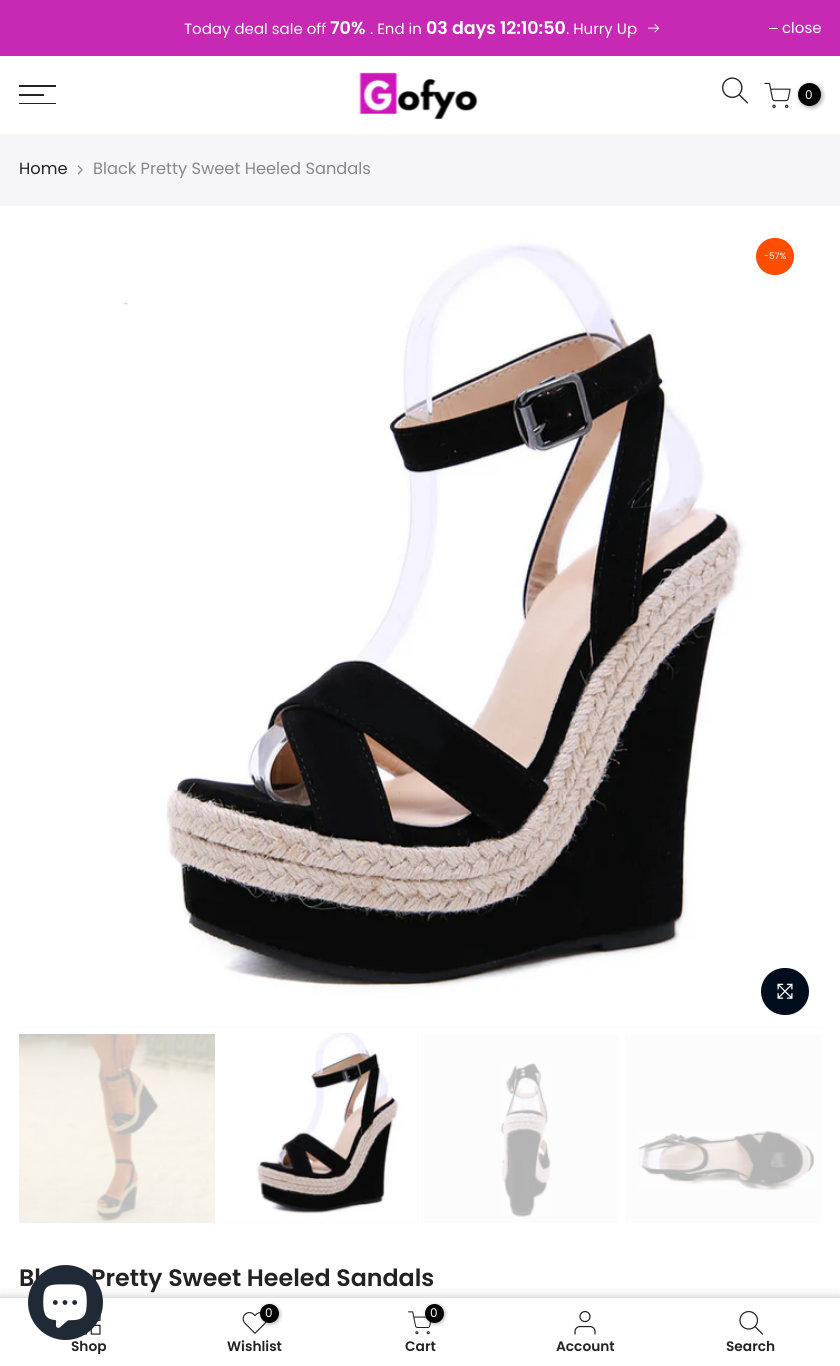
#include <cairo.h>
#include <math.h>
#include <stddef.h>

typedef struct { const char *family; double size; int italic, bold; unsigned color; } style_t;
static cairo_t *ctx;

static void ink(unsigned color) {
    cairo_set_source_rgb(ctx, (color >> 16) / 255.0, (color >> 8 & 255) / 255.0, (color & 255) / 255.0);
}

static void write(double x, double y, const char *s, const style_t *st) {
    cairo_select_font_face(ctx, st->family, st->italic ? CAIRO_FONT_SLANT_ITALIC : CAIRO_FONT_SLANT_NORMAL,
        st->bold ? CAIRO_FONT_WEIGHT_BOLD : CAIRO_FONT_WEIGHT_NORMAL);
    cairo_set_font_size(ctx, st->size);
    ink(st->color);
    cairo_move_to(ctx, x, y);
    cairo_show_text(ctx, s);
}

static void block(double x, double y, double w, double h, unsigned color) {
    ink(color);
    cairo_rectangle(ctx, x, y, w, h);
    cairo_fill(ctx);
}

static void round_path(double x, double y, double w, double h, double r) {
    cairo_new_sub_path(ctx);
    cairo_arc(ctx, x + w - r, y + h - r, r, 0, M_PI / 2);
    cairo_arc(ctx, x + r, y + h - r, r, M_PI / 2, M_PI);
    cairo_arc(ctx, x + r, y + r, r, M_PI, 1.5 * M_PI);
    cairo_arc(ctx, x + w - r, y + r, r, 1.5 * M_PI, 2 * M_PI);
    cairo_close_path(ctx);
}

static void blur_box(double x, double y, double w, double h, double r, double blur, double alpha) {
    cairo_push_group_with_content(ctx, CAIRO_CONTENT_ALPHA);
    cairo_set_operator(ctx, CAIRO_OPERATOR_SOURCE);
    for (int i = 15; i >= -15 && fmin(w, h) + blur * i / 3 > 0; i -= 2) {
        double e = blur * i / 6;
        cairo_set_source_rgba(ctx, 0, 0, 0, alpha * erfc((i - 1) / 8.5) / 2);
        round_path(x - e, y - e, w + 2 * e, h + 2 * e, fmax(0, fmin(r + e + blur * .6, fmin(w, h) / 2 + e)));
        cairo_fill(ctx);
    }
    cairo_pattern_t *soft = cairo_pop_group(ctx);
    cairo_mask(ctx, soft);
    cairo_pattern_destroy(soft);
}

static void paste(const char *path, double x, double y, double w, double h) {
    cairo_surface_t *image = cairo_image_surface_create_from_png(path);
    cairo_save(ctx);
    cairo_set_source_surface(ctx, image, x, y);
    cairo_rectangle(ctx, x, y, w, h);
    cairo_fill(ctx);
    cairo_restore(ctx);
    cairo_surface_destroy(image);
}

static const style_t s1 = {"Poppins", 15, 0, 0, 0xffffff};
static const style_t s2 = {"Poppins SemiBold", 17.5, 0, 0, 0xffffff};
static const style_t s3 = {"Poppins", 12, 0, 0, 0xffffff};
static const style_t s4 = {"Poppins", 16.25, 0, 0, 0x222222};
static const style_t s5 = {"Poppins", 16.25, 0, 0, 0x878787};
static const style_t s6 = {"Poppins", 9, 0, 0, 0xffffff};
static const style_t s7 = {"Poppins SemiBold", 23.75, 0, 0, 0x222222};
static const style_t s8 = {"Poppins SemiBold", 13.75, 0, 0, 0x222222};

int main(void) {
    cairo_surface_t *surface = cairo_image_surface_create(CAIRO_FORMAT_RGB24, 840, 1366);
    ctx = cairo_create(surface);
    cairo_font_options_t *options = cairo_font_options_create();
    cairo_font_options_set_hint_metrics(options, CAIRO_HINT_METRICS_OFF);
    cairo_font_options_set_hint_style(options, CAIRO_HINT_STYLE_NONE);
    cairo_set_font_options(ctx, options);
    cairo_set_miter_limit(ctx, 4);
    ink(0xffffff);
    cairo_paint(ctx);
    block(0, 0, 840, 56, 0xc729b5);
    write(184, 34, "Today deal sale off", &s1);
    write(330, 34, "70%", &s2);
    write(370, 34, ". End in", &s1);
    write(426, 34, "03 days 12:10:50", &s2);
    write(566, 34, ". Hurry Up", &s1);
    paste("pic1.png", 648, 23, 12, 10);
    block(769, 28, 9, 1, 0xffffff);
    write(782, 33, "close", &s1);
    block(19, 85, 37, 2, 0x222222);
    block(19, 94, 25, 2, 0x222222);
    block(19, 103, 37, 1, 0x222222);
    paste("pic2.png", 359, 72, 119, 48);
    paste("pic3.png", 721, 77, 27, 27);
    paste("pic4.png", 764, 82, 27, 26);
    ink(0x000000);
    blur_box(799, 84, 24, 24, 12, 2, 0.3);
    ink(0x000000);
    cairo_arc(ctx, 809.5, 94.5, 11.5, 0, 2 * M_PI);
    cairo_fill(ctx);
    write(805, 99, "0", &s3);
    block(0, 134, 840, 72, 0xf6f6f8);
    write(19, 174, "Home", &s4);
    paste("pic5.png", 77, 165, 6, 10);
    write(93, 174, "Black Pretty Sweet Heeled Sandals", &s5);
    block(19, 225, 802, 803, 0xf5f5f5);
    paste("pic6.png", 19, 225, 802, 803);
    ink(0xff4e00);
    round_path(756, 238, 38, 37, 18.5);
    cairo_fill(ctx);
    write(764, 259, "-57%", &s6);
    ink(0x000d1d);
    round_path(761, 968, 48, 47, 23.5);
    cairo_fill(ctx);
    paste("pic7.png", 777, 983, 16, 16);
    block(19, 1034, 196, 189, 0xfcfcfc);
    paste("pic8.png", 19, 1034, 196, 189);
    block(221, 1034, 197, 189, 0xf5f5f5);
    paste("pic9.png", 221, 1033, 197, 190);
    block(424, 1034, 195, 189, 0xfcfcfc);
    paste("pic10.png", 500, 1063, 51, 154);
    block(625, 1034, 196, 189, 0xfcfcfc);
    paste("pic11.png", 638, 1131, 177, 59);
    write(19, 1286, "Bl", &s7);
    write(91, 1286, "Pretty Sweet Heeled Sandals", &s7);
    ink(0x000000);
    blur_box(0, 1298, 840, 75, 0, 5.5, 0.12);
    blur_box(0, 1298, 840, 68, 0, 5.5, 0.12);
    block(0, 1298, 840, 68, 0xffffff);
    paste("pic13.png", 84, 1314, 17, 21);
    ink(0x202a36);
    cairo_arc(ctx, 65.5, 1302.5, 37.5, 0, 2 * M_PI);
    cairo_fill(ctx);
    paste("pic12.png", 43, 1284, 44, 44);
    cairo_save(ctx);
    cairo_rectangle(ctx, 19, 1340, 140, 14);
    cairo_clip(ctx);
    write(71, 1351, "Shop", &s8);
    cairo_restore(ctx);
    paste("pic14.png", 242, 1312, 25, 22);
    ink(0x000000);
    blur_box(261, 1305, 19, 19, 9.5, 2, 0.3);
    ink(0x000000);
    cairo_arc(ctx, 269.5, 1313.5, 9.5, 0, 2 * M_PI);
    cairo_fill(ctx);
    write(265, 1317, "0", &s3);
    write(227, 1351, "Wishlist", &s8);
    paste("pic15.png", 408, 1311, 23, 24);
    ink(0x000000);
    blur_box(426, 1305, 19, 19, 9.5, 2, 0.3);
    ink(0x000000);
    cairo_arc(ctx, 434.5, 1313.5, 9.5, 0, 2 * M_PI);
    cairo_fill(ctx);
    write(430, 1317, "0", &s3);
    write(405, 1351, "Cart", &s8);
    paste("pic16.png", 574, 1311, 22, 24);
    write(556, 1351, "Account", &s8);
    paste("pic17.png", 739, 1310, 25, 25);
    write(726, 1351, "Search", &s8);
    cairo_surface_write_to_png(surface, "screenshot.png");
    cairo_font_options_destroy(options);
    cairo_destroy(ctx);
    cairo_surface_destroy(surface);
    return 0;
}
